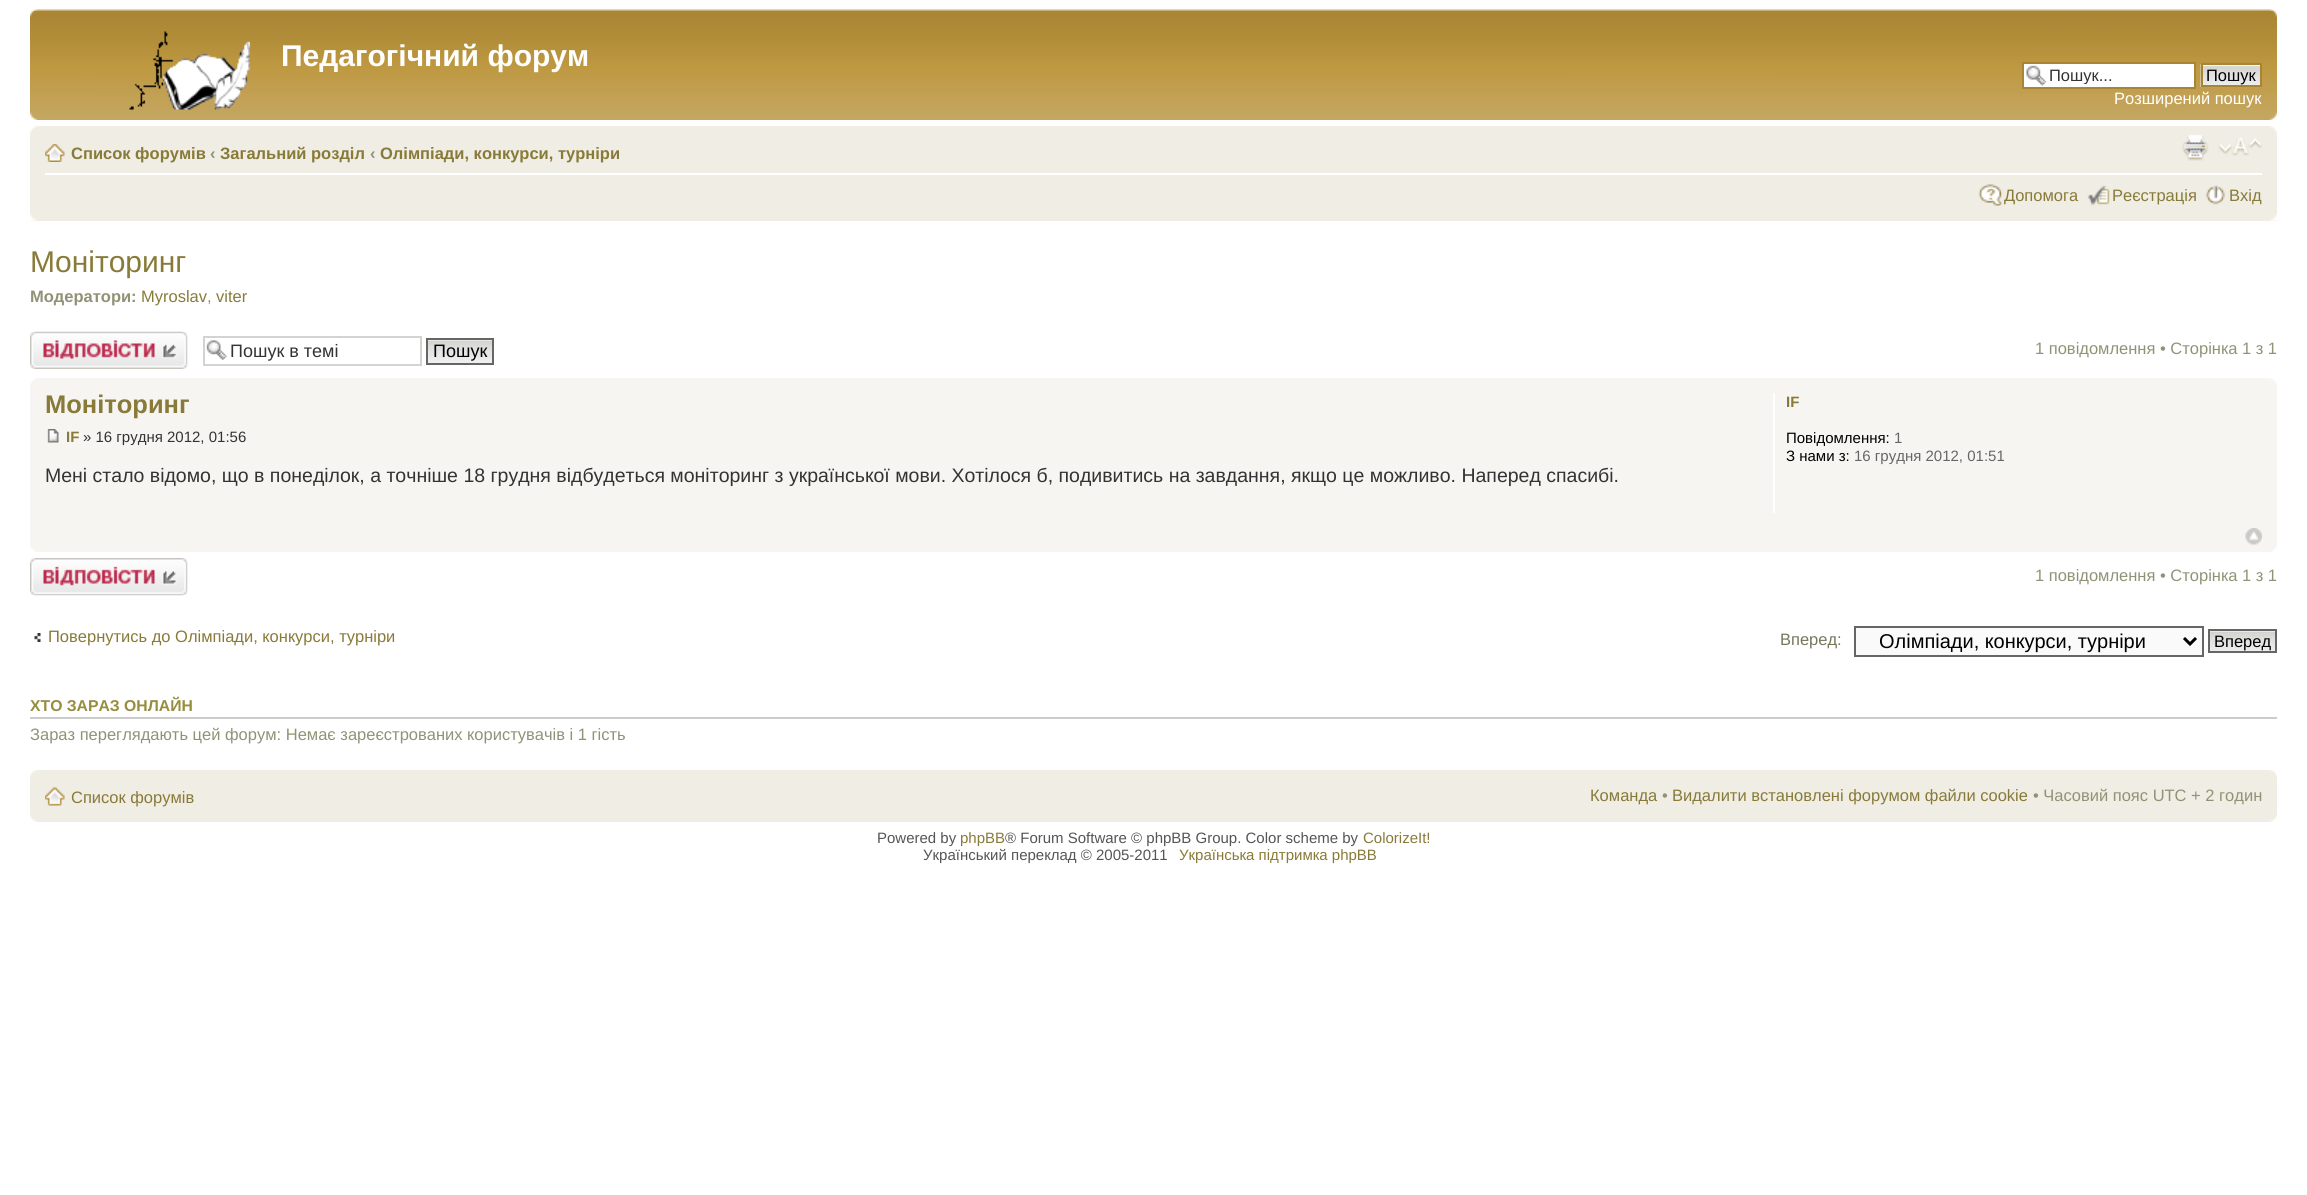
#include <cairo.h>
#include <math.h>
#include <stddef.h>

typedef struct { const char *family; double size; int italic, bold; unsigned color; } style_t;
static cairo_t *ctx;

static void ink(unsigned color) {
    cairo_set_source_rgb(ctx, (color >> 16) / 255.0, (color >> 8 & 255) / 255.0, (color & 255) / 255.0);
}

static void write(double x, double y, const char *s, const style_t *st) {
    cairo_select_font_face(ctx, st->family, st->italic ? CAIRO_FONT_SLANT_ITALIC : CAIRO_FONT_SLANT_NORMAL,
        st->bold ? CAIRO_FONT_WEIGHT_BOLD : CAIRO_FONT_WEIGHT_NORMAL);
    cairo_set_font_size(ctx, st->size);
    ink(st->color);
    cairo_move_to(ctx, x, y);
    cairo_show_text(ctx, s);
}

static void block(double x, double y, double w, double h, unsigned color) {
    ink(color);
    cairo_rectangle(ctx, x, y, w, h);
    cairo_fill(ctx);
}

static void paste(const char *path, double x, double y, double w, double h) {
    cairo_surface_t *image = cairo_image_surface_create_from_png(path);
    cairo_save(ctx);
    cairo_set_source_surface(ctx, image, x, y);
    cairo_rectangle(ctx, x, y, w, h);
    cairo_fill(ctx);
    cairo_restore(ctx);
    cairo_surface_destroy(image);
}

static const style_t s1 = {"Liberation Sans", 30, 0, 1, 0xffffff};
static const style_t s2 = {"Liberation Sans", 16.5, 0, 0, 0x333333};
static const style_t s3 = {"Liberation Sans", 16.5, 0, 0, 0x000000};
static const style_t s4 = {"Liberation Sans", 16.5, 0, 0, 0xffffff};
static const style_t s5 = {"Liberation Sans", 16.5, 0, 1, 0x887a38};
static const style_t s6 = {"Liberation Sans", 16.5, 0, 1, 0x919275};
static const style_t s7 = {"Liberation Sans", 16.5, 0, 0, 0x887a38};
static const style_t s8 = {"Liberation Sans", 30, 0, 0, 0x887a38};
static const style_t s9 = {"Liberation Sans", 16.5, 0, 0, 0x919275};
static const style_t s10 = {"Liberation Sans", 18, 0, 0, 0x333333};
static const style_t s11 = {"Liberation Sans", 18, 0, 0, 0x000000};
static const style_t s12 = {"Liberation Sans", 25.5, 0, 1, 0x887a38};
static const style_t s13 = {"Liberation Sans", 15, 0, 1, 0x887a38};
static const style_t s14 = {"Liberation Sans", 15, 0, 0, 0x333333};
static const style_t s15 = {"Liberation Sans", 19.5, 0, 0, 0x333333};
static const style_t s16 = {"Liberation Sans", 15, 0, 0, 0x000000};
static const style_t s17 = {"Liberation Sans", 15, 0, 0, 0x666666};
static const style_t s18 = {"Liberation Sans", 16.5, 0, 0, 0x76765d};
static const style_t s19 = {"Liberation Sans", 20, 0, 0, 0x000000};
static const style_t s20 = {"Liberation Sans", 15.75, 0, 1, 0x968d3d};
static const style_t s21 = {"Liberation Sans", 15, 0, 0, 0x555555};
static const style_t s22 = {"Liberation Sans", 15, 0, 0, 0x887a38};

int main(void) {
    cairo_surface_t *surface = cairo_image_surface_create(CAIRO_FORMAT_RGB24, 2307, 1195);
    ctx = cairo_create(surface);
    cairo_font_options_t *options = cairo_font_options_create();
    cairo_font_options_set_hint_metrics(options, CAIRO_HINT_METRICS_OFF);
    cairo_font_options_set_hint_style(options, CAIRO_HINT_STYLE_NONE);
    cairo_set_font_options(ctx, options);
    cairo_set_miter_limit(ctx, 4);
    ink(0xffffff);
    cairo_paint(ctx);
    paste("pic1.png", 30, 9, 2247, 111);
    paste("pic2.png", 30, 9, 8, 8);
    paste("pic3.png", 2269, 9, 8, 8);
    paste("pic4.png", 129, 31, 122, 79);
    write(281, 66, "Педагогічний форум", &s1);
    block(2024, 64, 170, 23, 0xffffff);
    paste("pic5.png", 2026, 65, 21, 21);
    cairo_rectangle(ctx, 2023, 63, 172, 25);
    ink(0xa88534);
    cairo_stroke(ctx);
    cairo_save(ctx);
    cairo_rectangle(ctx, 2049, 66, 143, 18);
    cairo_clip(ctx);
    write(2049, 81, "Пошук...", &s2);
    cairo_restore(ctx);
    paste("pic6.png", 2200, 64, 60, 23);
    cairo_rectangle(ctx, 2202, 64, 59, 22);
    cairo_stroke(ctx);
    write(2206, 81, "Пошук", &s3);
    write(2114, 104, "Розширений пошук", &s4);
    paste("pic7.png", 30, 112, 8, 8);
    paste("pic8.png", 2269, 112, 8, 8);
    block(30, 126, 2247, 95, 0xefede4);
    paste("pic9.png", 30, 126, 7, 7);
    paste("pic10.png", 2270, 126, 7, 7);
    block(45, 173, 2217, 2, 0xffffff);
    paste("pic11.png", 45, 144, 20, 18);
    write(71, 159, "Список форумів", &s5);
    write(210, 159, "‹", &s6);
    write(220, 159, "Загальний розділ", &s5);
    write(370, 159, "‹", &s6);
    write(380, 159, "Олімпіади, конкурси, турніри", &s5);
    paste("pic12.png", 2182, 135, 27, 26);
    paste("pic13.png", 2218, 138, 44, 18);
    paste("pic14.png", 1978, 184, 25, 22);
    write(2004, 201, "Допомога", &s7);
    paste("pic15.png", 2087, 185, 23, 21);
    write(2112, 201, "Реєстрація", &s7);
    paste("pic16.png", 2206, 185, 19, 20);
    write(2229, 201, "Вхід", &s7);
    paste("pic17.png", 30, 213, 7, 8);
    paste("pic18.png", 2270, 213, 7, 8);
    write(30, 272, "Монiторинг", &s8);
    write(30, 302, "Модератори:", &s6);
    write(141, 302, "Myroslav", &s7);
    write(207, 302, ",", &s9);
    write(216, 302, "viter", &s7);
    paste("pic19.png", 30, 331, 158, 38);
    paste("pic20.png", 206, 340, 21, 20);
    cairo_rectangle(ctx, 204, 337, 217, 28);
    ink(0xd3d3cf);
    cairo_stroke(ctx);
    write(230, 357, "Пошук в темі", &s10);
    paste("pic21.png", 428, 340, 64, 23);
    cairo_rectangle(ctx, 427, 339, 66, 25);
    ink(0x666666);
    cairo_stroke(ctx);
    write(433, 357, "Пошук", &s11);
    write(2035, 354, "1 повідомлення • Сторінка 1 з 1", &s9);
    block(30, 378, 2247, 174, 0xf6f5f1);
    paste("pic22.png", 30, 378, 7, 7);
    paste("pic23.png", 2270, 378, 7, 7);
    write(45, 413, "Монiторинг", &s12);
    paste("pic24.png", 47, 429, 12, 14);
    write(66, 442, "IF", &s13);
    write(83, 442, "» 16 грудня 2012, 01:56", &s14);
    write(45, 482, "Мені стало відомо, що в понеділок, а точніше 18 грудня відбудеться моніторинг з української мови. Хотілося б, подивитись на завдання, якщо це можливо. Наперед спасибі.", &s15);
    block(1773, 393, 2, 120, 0xffffff);
    write(1786, 407, "IF", &s13);
    write(1786, 443, "Повідомлення:", &s16);
    write(1894, 443, "1", &s17);
    write(1786, 461, "З нами з:", &s16);
    write(1854, 461, "16 грудня 2012, 01:51", &s17);
    paste("pic25.png", 2245, 528, 17, 17);
    paste("pic26.png", 30, 546, 7, 6);
    paste("pic27.png", 2271, 546, 6, 6);
    paste("pic28.png", 30, 558, 158, 38);
    write(2035, 581, "1 повідомлення • Сторінка 1 з 1", &s9);
    paste("pic29.png", 34, 633, 7, 9);
    write(48, 642, "Повернутись до Олімпіади, конкурси, турніри", &s7);
    write(1780, 645, "Вперед:", &s18);
    ink(0xfafafa);
    cairo_rectangle(ctx, 1855, 627, 348, 29);
    cairo_fill_preserve(ctx);
    ink(0x666666);
    cairo_stroke(ctx);
    cairo_new_path(ctx);
    cairo_move_to(ctx, 2184, 638);
    cairo_line_to(ctx, 2190, 644);
    cairo_line_to(ctx, 2196, 638);
    ink(0x000000);
    cairo_set_line_width(ctx, 3);
    cairo_stroke(ctx);
    write(1879, 648, "Олімпіади, конкурси, турніри", &s19);
    paste("pic30.png", 2210, 631, 65, 20);
    cairo_rectangle(ctx, 2209, 630, 67, 22);
    ink(0x666666);
    cairo_set_line_width(ctx, 2);
    cairo_stroke(ctx);
    write(2214, 647, "Вперед", &s3);
    block(30, 717, 2247, 2, 0xcccccc);
    write(30, 711, "ХТО ЗАРАЗ ОНЛАЙН", &s20);
    write(30, 740, "Зараз переглядають цей форум: Немає зареєстрованих користувачів і 1 гість", &s9);
    block(30, 770, 2247, 52, 0xefede4);
    paste("pic31.png", 30, 770, 7, 7);
    paste("pic32.png", 2270, 770, 7, 7);
    paste("pic33.png", 45, 787, 20, 19);
    write(71, 803, "Список форумів", &s7);
    write(1590, 801, "Команда", &s7);
    write(1662, 801, "•", &s9);
    write(1672, 801, "Видалити встановлені форумом файли cookie", &s7);
    write(2033, 801, "• Часовий пояс UTC + 2 годин", &s9);
    paste("pic34.png", 30, 815, 7, 7);
    paste("pic35.png", 2270, 815, 7, 7);
    write(877, 843, "Powered by", &s21);
    write(960, 843, "phpBB", &s22);
    write(1005, 843, "® Forum Software © phpBB Group. Color scheme by", &s21);
    write(1363, 843, "ColorizeIt!", &s22);
    write(923, 860, "Український переклад © 2005-2011", &s21);
    write(1179, 860, "Українська підтримка phpBB", &s22);
    cairo_surface_write_to_png(surface, "screenshot.png");
    cairo_font_options_destroy(options);
    cairo_destroy(ctx);
    cairo_surface_destroy(surface);
    return 0;
}
